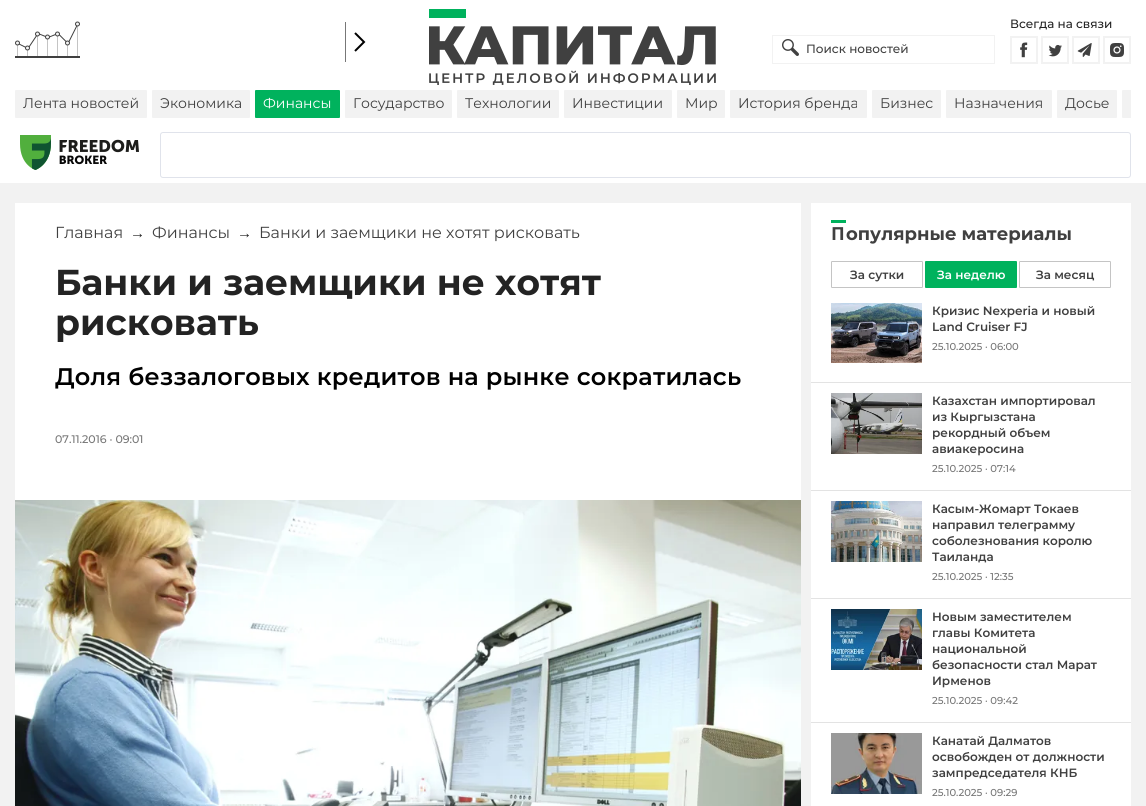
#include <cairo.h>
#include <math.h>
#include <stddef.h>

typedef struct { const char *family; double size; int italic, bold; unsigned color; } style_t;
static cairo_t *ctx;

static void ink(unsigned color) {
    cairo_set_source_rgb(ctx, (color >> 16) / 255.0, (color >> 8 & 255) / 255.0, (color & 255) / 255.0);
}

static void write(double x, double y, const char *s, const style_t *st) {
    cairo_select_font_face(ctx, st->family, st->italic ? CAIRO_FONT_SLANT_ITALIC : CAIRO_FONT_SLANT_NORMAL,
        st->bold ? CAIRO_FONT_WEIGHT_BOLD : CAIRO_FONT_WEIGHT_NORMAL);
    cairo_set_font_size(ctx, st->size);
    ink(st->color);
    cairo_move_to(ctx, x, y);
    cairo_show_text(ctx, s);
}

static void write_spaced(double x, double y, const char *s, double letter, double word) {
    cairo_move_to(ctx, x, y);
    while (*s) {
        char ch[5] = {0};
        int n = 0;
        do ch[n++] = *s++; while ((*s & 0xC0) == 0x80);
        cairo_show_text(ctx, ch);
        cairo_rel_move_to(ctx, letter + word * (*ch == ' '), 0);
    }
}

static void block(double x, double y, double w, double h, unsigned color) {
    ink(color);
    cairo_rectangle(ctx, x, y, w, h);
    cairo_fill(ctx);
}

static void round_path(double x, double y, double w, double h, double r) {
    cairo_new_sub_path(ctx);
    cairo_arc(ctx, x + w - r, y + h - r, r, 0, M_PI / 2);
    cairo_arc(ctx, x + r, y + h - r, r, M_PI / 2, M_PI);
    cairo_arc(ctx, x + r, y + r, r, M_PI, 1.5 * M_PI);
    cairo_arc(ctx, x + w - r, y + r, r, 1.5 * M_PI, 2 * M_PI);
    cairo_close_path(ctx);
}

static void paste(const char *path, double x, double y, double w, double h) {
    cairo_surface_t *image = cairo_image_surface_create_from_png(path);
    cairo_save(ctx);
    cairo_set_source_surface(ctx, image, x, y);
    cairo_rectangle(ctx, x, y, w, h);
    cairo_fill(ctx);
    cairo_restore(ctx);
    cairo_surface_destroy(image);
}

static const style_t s1 = {"Montserrat Medium", 12, 0, 0, 0x232323};
static const style_t s2 = {"Montserrat Medium", 12, 0, 0, 0x404040};
static const style_t s3 = {"Montserrat", 14, 0, 0, 0x404040};
static const style_t s4 = {"Montserrat", 14, 0, 0, 0xffffff};
static const style_t s5 = {"Montserrat", 16, 0, 0, 0x404040};
static const style_t s6 = {"Liberation Serif", 15, 0, 0, 0x232323};
static const style_t s7 = {"Montserrat", 36, 0, 1, 0x232323};
static const style_t s8 = {"Montserrat Medium", 11, 0, 0, 0x777777};
static const style_t s9 = {"Noto Sans", 18, 0, 1, 0x404040};
static const style_t s10 = {"Montserrat", 18, 0, 1, 0x404040};
static const style_t s11 = {"Montserrat SemiBold", 12, 0, 0, 0x404040};
static const style_t s12 = {"Montserrat SemiBold", 12, 0, 0, 0xffffff};
static const style_t s13 = {"Montserrat Medium", 10, 0, 0, 0x777777};

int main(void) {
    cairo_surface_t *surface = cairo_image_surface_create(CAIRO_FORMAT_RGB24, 1146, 806);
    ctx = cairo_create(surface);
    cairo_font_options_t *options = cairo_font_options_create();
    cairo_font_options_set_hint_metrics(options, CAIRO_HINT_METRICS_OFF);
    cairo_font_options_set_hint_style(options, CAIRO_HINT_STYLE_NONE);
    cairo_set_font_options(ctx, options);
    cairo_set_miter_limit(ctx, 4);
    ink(0xf2f2f2);
    cairo_paint(ctx);
    block(0, 0, 1146, 183, 0xffffff);
    paste("pic1.png", 20, 135, 119, 35);
    round_path(160.5, 132.5, 970, 45, 2.5);
    ink(0xe0e3eb);
    cairo_set_line_width(ctx, 1);
    cairo_stroke(ctx);
    paste("pic2.png", 15, 21, 65, 37);
    block(345, 22, 1, 40, 0x777777);
    cairo_new_path(ctx);
    cairo_move_to(ctx, 355, 33);
    cairo_line_to(ctx, 364, 42);
    cairo_line_to(ctx, 355, 51);
    ink(0x000000);
    cairo_set_line_width(ctx, 2);
    cairo_stroke(ctx);
    paste("pic3.png", 429, 9, 287, 76);
    write(1010, 28, "Всегда на связи", &s1);
    paste("pic4.png", 1010, 36, 28, 28);
    paste("pic5.png", 1041, 36, 28, 28);
    paste("pic6.png", 1072, 36, 28, 28);
    paste("pic7.png", 1103, 36, 28, 28);
    cairo_rectangle(ctx, 772.5, 35.5, 222, 28);
    ink(0xf2f2f2);
    cairo_set_line_width(ctx, 1);
    cairo_stroke(ctx);
    paste("pic8.png", 782, 39, 17, 17);
    write(806, 53, "Поиск новостей", &s2);
    ink(0xf2f2f2);
    round_path(15, 90, 132, 28, 1);
    cairo_fill(ctx);
    write(23, 108, "Лента новостей", &s3);
    ink(0xf2f2f2);
    round_path(152, 90, 98, 28, 1);
    cairo_fill(ctx);
    write(160, 108, "Экономика", &s3);
    ink(0x00b25d);
    round_path(255, 90, 85, 28, 1);
    cairo_fill(ctx);
    write(263, 108, "Финансы", &s4);
    ink(0xf2f2f2);
    round_path(345, 90, 107, 28, 1);
    cairo_fill(ctx);
    write(353, 108, "Государство", &s3);
    ink(0xf2f2f2);
    round_path(457, 90, 102, 28, 1);
    cairo_fill(ctx);
    write(465, 108, "Технологии", &s3);
    ink(0xf2f2f2);
    round_path(564, 90, 108, 28, 1);
    cairo_fill(ctx);
    write(572, 108, "Инвестиции", &s3);
    ink(0xf2f2f2);
    round_path(677, 90, 48, 28, 1);
    cairo_fill(ctx);
    write(685, 108, "Мир", &s3);
    ink(0xf2f2f2);
    round_path(730, 90, 137, 28, 1);
    cairo_fill(ctx);
    write(738, 108, "История бренда", &s3);
    ink(0xf2f2f2);
    round_path(872, 90, 69, 28, 1);
    cairo_fill(ctx);
    write(880, 108, "Бизнес", &s3);
    ink(0xf2f2f2);
    round_path(946, 90, 106, 28, 1);
    cairo_fill(ctx);
    write(954, 108, "Назначения", &s3);
    ink(0xf2f2f2);
    round_path(1057, 90, 60, 28, 1);
    cairo_fill(ctx);
    write(1065, 108, "Досье", &s3);
    ink(0xf2f2f2);
    cairo_new_path(ctx);
    cairo_move_to(ctx, 1123, 90);
    cairo_line_to(ctx, 1131, 90);
    cairo_line_to(ctx, 1131, 118);
    cairo_line_to(ctx, 1123, 118);
    cairo_curve_to(ctx, 1122.5, 118, 1122, 117.5, 1122, 117);
    cairo_line_to(ctx, 1122, 91);
    cairo_curve_to(ctx, 1122, 90.5, 1122.5, 90, 1123, 90);
    cairo_close_path(ctx);
    cairo_fill(ctx);
    block(15, 203, 786, 297, 0xffffff);
    write(55, 238, "Главная", &s5);
    write(130, 238, "→", &s6);
    write(152, 238, "Финансы", &s5);
    write(237, 238, "→", &s6);
    write(259, 238, "Банки и заемщики не хотят рисковать", &s5);
    write(55, 295, "Банки и заемщики не хотят", &s7);
    write(55, 335, "рисковать", &s7);
    cairo_select_font_face(ctx, "Montserrat SemiBold", CAIRO_FONT_SLANT_NORMAL, CAIRO_FONT_WEIGHT_NORMAL);
    cairo_set_font_size(ctx, 24);
    ink(0x000000);
    write_spaced(55, 385, "Доля беззалоговых кредитов на рынке сократилась", 0.2, 0);
    write(55, 443, "07.11.2016 · 09:01", &s8);
    paste("pic9.png", 15, 500, 786, 306);
    block(811, 203, 320, 603, 0xffffff);
    write(831, 240, "П", &s9);
    block(831, 220, 15, 3, 0x00b25d);
    write(846, 240, "опулярные материалы", &s10);
    round_path(831.5, 261.5, 91, 26, 0.5);
    ink(0xc4c4c4);
    cairo_stroke(ctx);
    write(850, 279, "За сутки", &s11);
    ink(0x00b25d);
    round_path(925.5, 261.5, 91, 26, 0.5);
    cairo_fill_preserve(ctx);
    cairo_stroke(ctx);
    write(937, 279, "За неделю", &s12);
    round_path(1019.5, 261.5, 91, 26, 0.5);
    ink(0xc4c4c4);
    cairo_stroke(ctx);
    write(1036, 279, "За месяц", &s11);
    block(811, 382, 320, 1, 0xe3e3e3);
    paste("pic10.png", 831, 303, 91, 60);
    write(932, 315, "Кризис Nexperia и новый", &s11);
    write(932, 331, "Land Cruiser FJ", &s11);
    write(932, 350, "25.10.2025 · 06:00", &s13);
    block(811, 490, 320, 1, 0xe3e3e3);
    paste("pic11.png", 831, 393, 91, 61);
    write(932, 405, "Казахстан импортировал", &s11);
    write(932, 421, "из Кыргызстана", &s11);
    write(932, 437, "рекордный объем", &s11);
    write(932, 453, "авиакеросина", &s11);
    write(932, 472, "25.10.2025 · 07:14", &s13);
    block(811, 598, 320, 1, 0xe3e3e3);
    paste("pic12.png", 831, 501, 91, 61);
    write(932, 513, "Касым-Жомарт Токаев", &s11);
    write(932, 529, "направил телеграмму", &s11);
    write(932, 545, "соболезнования королю", &s11);
    write(932, 561, "Таиланда", &s11);
    write(932, 580, "25.10.2025 · 12:35", &s13);
    block(811, 722, 320, 1, 0xe3e3e3);
    paste("pic13.png", 831, 609, 91, 61);
    write(932, 621, "Новым заместителем", &s11);
    write(932, 637, "главы Комитета", &s11);
    write(932, 653, "национальной", &s11);
    write(932, 669, "безопасности стал Марат", &s11);
    write(932, 685, "Ирменов", &s11);
    write(932, 704, "25.10.2025 · 09:42", &s13);
    paste("pic14.png", 831, 733, 91, 61);
    write(932, 745, "Канатай Далматов", &s11);
    write(932, 761, "освобожден от должности", &s11);
    write(932, 777, "зампредседателя КНБ", &s11);
    write(932, 796, "25.10.2025 · 09:29", &s13);
    cairo_surface_write_to_png(surface, "screenshot.png");
    cairo_font_options_destroy(options);
    cairo_destroy(ctx);
    cairo_surface_destroy(surface);
    return 0;
}
